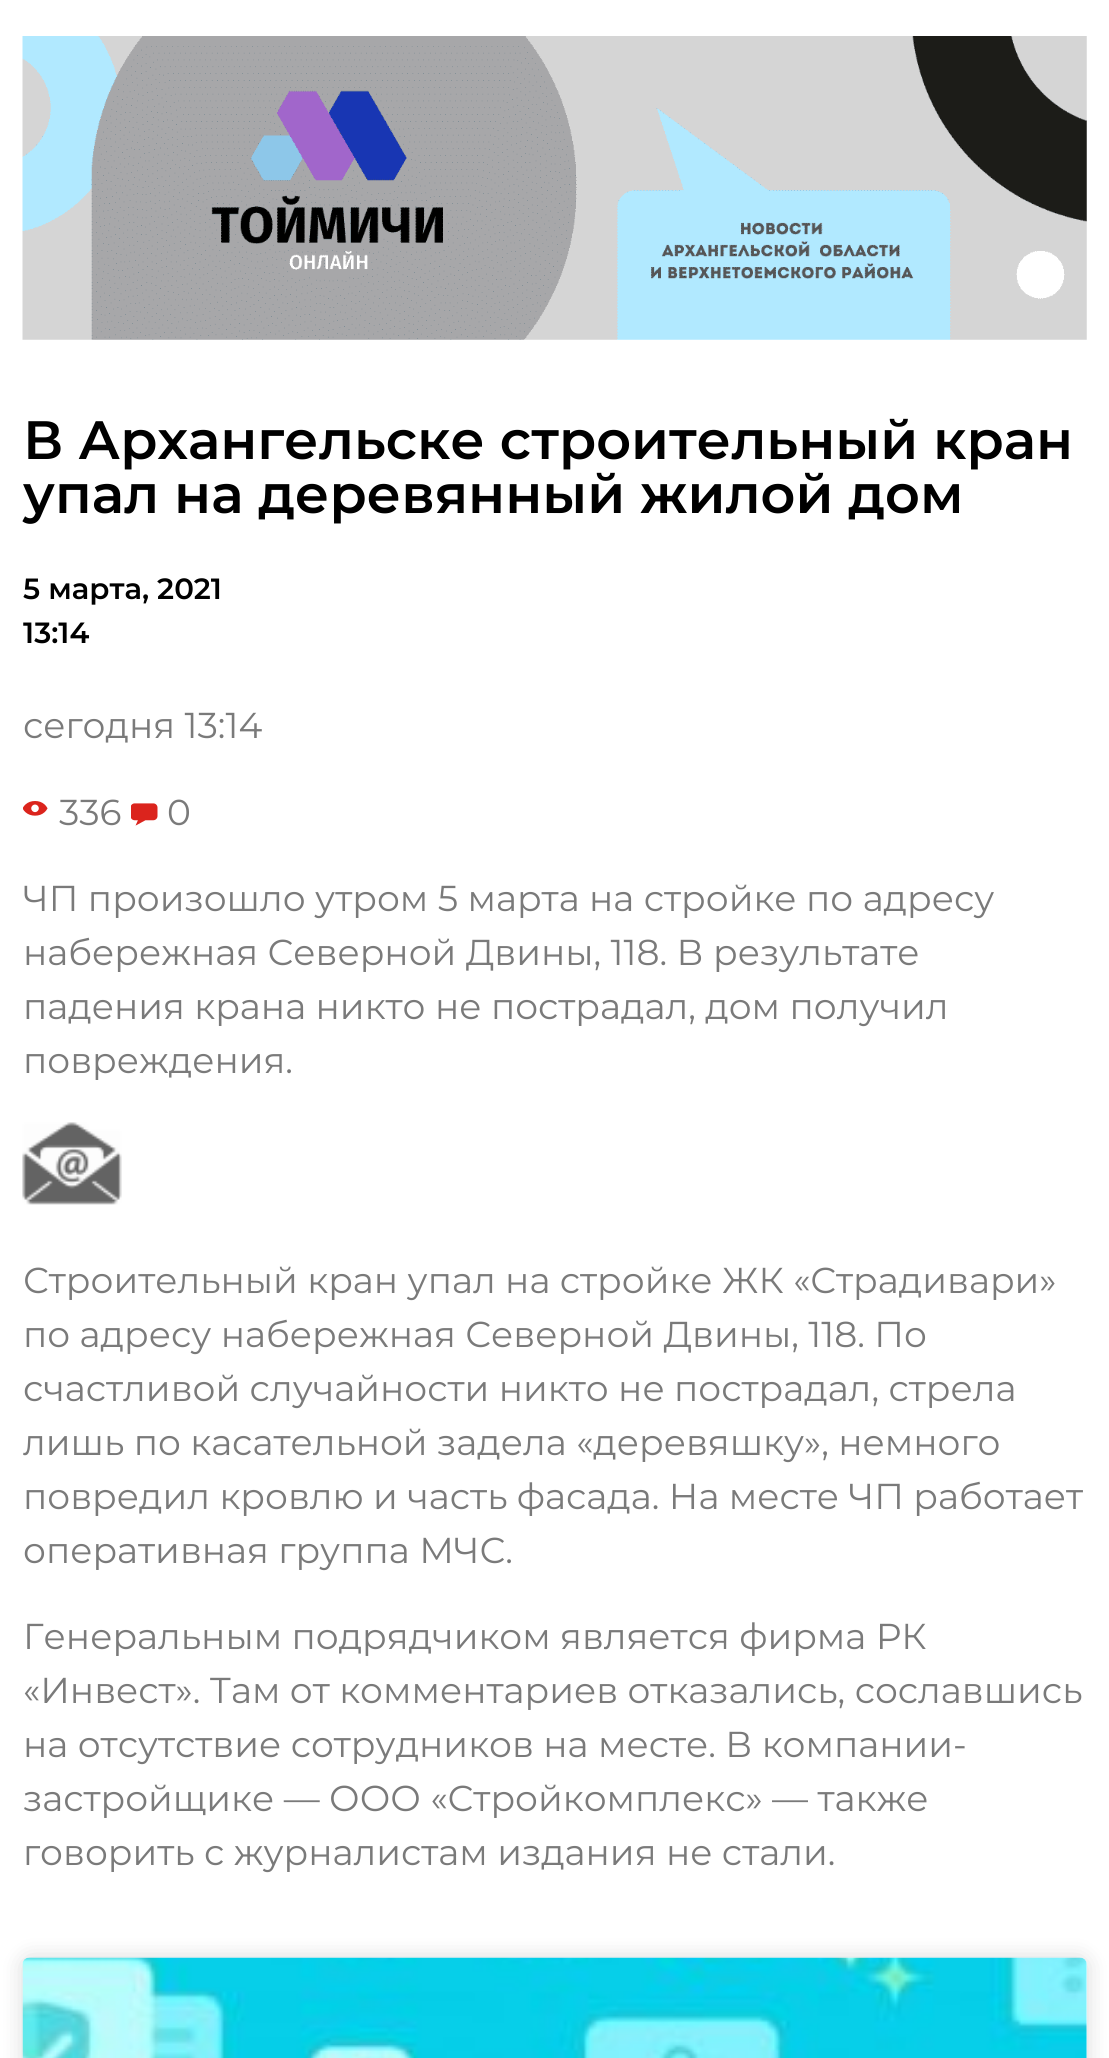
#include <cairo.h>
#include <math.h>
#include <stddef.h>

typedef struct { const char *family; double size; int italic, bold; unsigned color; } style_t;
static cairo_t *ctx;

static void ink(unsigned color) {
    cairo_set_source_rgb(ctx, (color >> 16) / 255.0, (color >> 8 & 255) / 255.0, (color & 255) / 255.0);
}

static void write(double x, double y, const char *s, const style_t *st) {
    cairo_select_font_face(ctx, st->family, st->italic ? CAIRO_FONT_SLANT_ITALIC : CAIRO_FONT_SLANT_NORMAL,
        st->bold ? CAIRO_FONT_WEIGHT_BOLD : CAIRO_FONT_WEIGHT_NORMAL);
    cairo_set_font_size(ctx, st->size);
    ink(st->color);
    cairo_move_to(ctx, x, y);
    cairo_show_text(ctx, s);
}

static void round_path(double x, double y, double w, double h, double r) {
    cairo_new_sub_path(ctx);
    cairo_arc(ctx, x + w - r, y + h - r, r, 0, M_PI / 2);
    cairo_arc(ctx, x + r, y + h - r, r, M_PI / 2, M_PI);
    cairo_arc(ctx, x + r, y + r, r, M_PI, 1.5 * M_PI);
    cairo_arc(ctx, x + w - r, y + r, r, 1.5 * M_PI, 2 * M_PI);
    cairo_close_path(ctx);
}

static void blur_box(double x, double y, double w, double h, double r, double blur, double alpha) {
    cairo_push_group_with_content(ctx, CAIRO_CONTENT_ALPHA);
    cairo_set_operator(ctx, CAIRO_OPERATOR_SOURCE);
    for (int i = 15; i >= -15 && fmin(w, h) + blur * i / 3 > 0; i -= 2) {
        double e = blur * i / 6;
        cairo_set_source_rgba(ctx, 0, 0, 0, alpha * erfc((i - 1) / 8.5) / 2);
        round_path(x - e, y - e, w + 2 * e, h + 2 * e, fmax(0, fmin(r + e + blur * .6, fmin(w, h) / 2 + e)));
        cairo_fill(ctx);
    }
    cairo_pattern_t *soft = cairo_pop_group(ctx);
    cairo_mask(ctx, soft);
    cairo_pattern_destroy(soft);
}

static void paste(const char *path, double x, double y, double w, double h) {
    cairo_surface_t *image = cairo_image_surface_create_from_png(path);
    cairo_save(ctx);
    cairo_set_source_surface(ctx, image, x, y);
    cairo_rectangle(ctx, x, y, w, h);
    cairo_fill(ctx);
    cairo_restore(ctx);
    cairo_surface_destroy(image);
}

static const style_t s1 = {"Montserrat SemiBold", 54, 0, 0, 0x000000};
static const style_t s2 = {"Montserrat SemiBold", 29.25, 0, 0, 0x000000};
static const style_t s3 = {"Montserrat", 36, 0, 0, 0x7a7a7a};

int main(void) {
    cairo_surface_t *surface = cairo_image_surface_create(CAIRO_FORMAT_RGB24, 1109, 2058);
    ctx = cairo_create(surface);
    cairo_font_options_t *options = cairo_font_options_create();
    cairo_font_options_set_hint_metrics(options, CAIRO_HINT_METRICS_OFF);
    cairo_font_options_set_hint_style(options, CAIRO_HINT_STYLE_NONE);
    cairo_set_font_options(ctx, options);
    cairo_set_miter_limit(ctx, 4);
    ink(0xffffff);
    cairo_paint(ctx);
    paste("pic1.png", 22, 36, 1065, 304);
    write(23, 459, "В Архангельске строительный кран", &s1);
    write(23, 513, "упал на деревянный жилой дом", &s1);
    write(23, 599, "5 марта, 2021", &s2);
    write(23, 643, "13:14", &s2);
    write(23, 738, "сегодня 13:14", &s3);
    paste("pic2.png", 23, 801, 25, 15);
    write(59, 825, "336", &s3);
    paste("pic3.png", 131, 803, 27, 23);
    write(167, 825, "0", &s3);
    write(23, 911, "ЧП произошло утром 5 марта на стройке по адресу", &s3);
    write(23, 965, "набережная Северной Двины, 118. В результате", &s3);
    write(23, 1019, "падения крана никто не пострадал, дом получил", &s3);
    write(23, 1073, "повреждения.", &s3);
    paste("pic4.png", 22, 1122, 100, 83);
    write(23, 1293, "Строительный кран упал на стройке ЖК «Страдивари»", &s3);
    write(23, 1347, "по адресу набережная Северной Двины, 118. По", &s3);
    write(23, 1401, "счастливой случайности никто не пострадал, стрела", &s3);
    write(23, 1455, "лишь по касательной задела «деревяшку», немного", &s3);
    write(23, 1509, "повредил кровлю и часть фасада. На месте ЧП работает", &s3);
    write(23, 1563, "оперативная группа МЧС.", &s3);
    write(23, 1649, "Генеральным подрядчиком является фирма РК", &s3);
    write(23, 1703, "«Инвест». Там от комментариев отказались, сославшись", &s3);
    write(23, 1757, "на отсутствие сотрудников на месте. В компании-", &s3);
    write(23, 1811, "застройщике — ООО «Стройкомплекс» — также", &s3);
    write(23, 1865, "говорить с журналистам издания не стали.", &s3);
    ink(0x000000);
    blur_box(23, 1958, 1064, 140, 7, 11, 0.15);
    ink(0xffffff);
    round_path(23, 1958, 1064, 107, 7);
    cairo_fill(ctx);
    paste("pic5.png", 22, 1957, 1065, 101);
    cairo_surface_write_to_png(surface, "screenshot.png");
    cairo_font_options_destroy(options);
    cairo_destroy(ctx);
    cairo_surface_destroy(surface);
    return 0;
}
